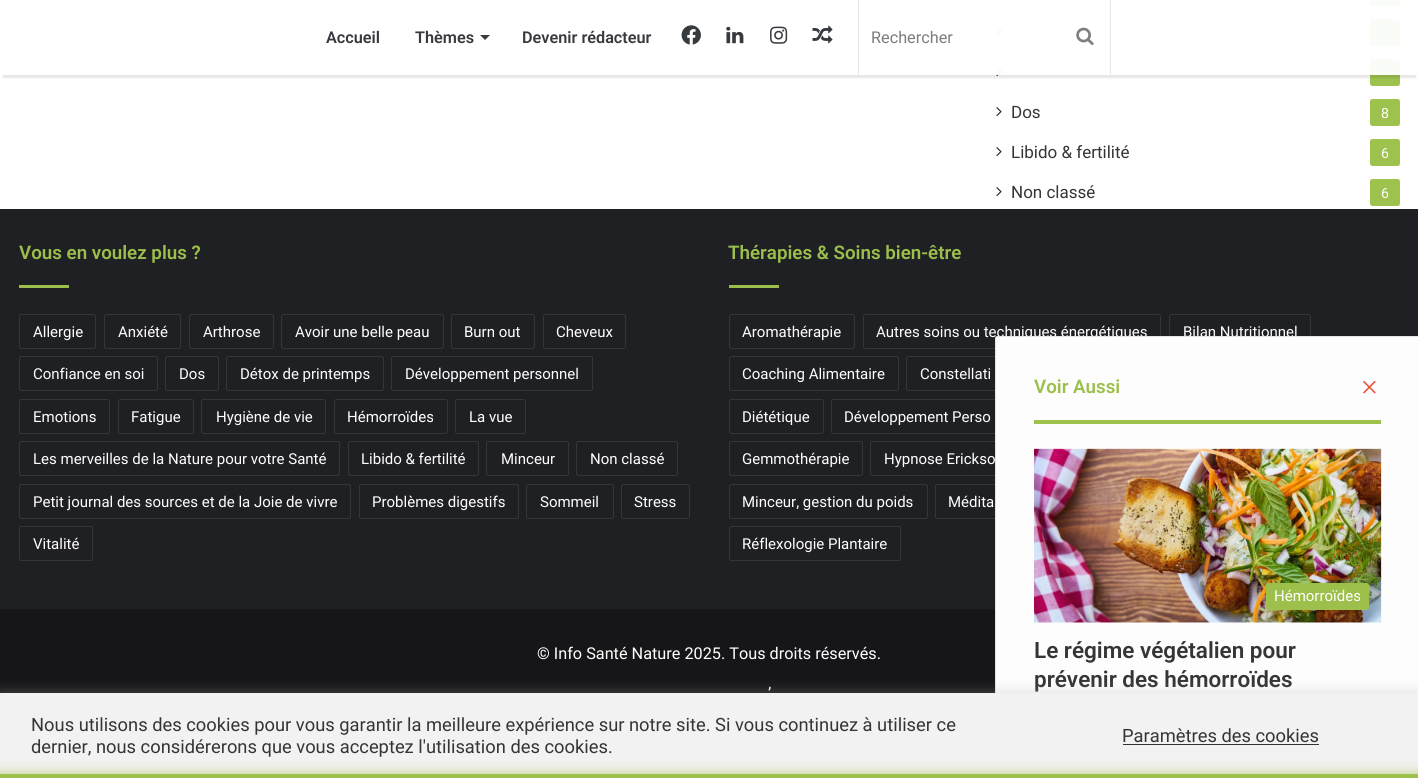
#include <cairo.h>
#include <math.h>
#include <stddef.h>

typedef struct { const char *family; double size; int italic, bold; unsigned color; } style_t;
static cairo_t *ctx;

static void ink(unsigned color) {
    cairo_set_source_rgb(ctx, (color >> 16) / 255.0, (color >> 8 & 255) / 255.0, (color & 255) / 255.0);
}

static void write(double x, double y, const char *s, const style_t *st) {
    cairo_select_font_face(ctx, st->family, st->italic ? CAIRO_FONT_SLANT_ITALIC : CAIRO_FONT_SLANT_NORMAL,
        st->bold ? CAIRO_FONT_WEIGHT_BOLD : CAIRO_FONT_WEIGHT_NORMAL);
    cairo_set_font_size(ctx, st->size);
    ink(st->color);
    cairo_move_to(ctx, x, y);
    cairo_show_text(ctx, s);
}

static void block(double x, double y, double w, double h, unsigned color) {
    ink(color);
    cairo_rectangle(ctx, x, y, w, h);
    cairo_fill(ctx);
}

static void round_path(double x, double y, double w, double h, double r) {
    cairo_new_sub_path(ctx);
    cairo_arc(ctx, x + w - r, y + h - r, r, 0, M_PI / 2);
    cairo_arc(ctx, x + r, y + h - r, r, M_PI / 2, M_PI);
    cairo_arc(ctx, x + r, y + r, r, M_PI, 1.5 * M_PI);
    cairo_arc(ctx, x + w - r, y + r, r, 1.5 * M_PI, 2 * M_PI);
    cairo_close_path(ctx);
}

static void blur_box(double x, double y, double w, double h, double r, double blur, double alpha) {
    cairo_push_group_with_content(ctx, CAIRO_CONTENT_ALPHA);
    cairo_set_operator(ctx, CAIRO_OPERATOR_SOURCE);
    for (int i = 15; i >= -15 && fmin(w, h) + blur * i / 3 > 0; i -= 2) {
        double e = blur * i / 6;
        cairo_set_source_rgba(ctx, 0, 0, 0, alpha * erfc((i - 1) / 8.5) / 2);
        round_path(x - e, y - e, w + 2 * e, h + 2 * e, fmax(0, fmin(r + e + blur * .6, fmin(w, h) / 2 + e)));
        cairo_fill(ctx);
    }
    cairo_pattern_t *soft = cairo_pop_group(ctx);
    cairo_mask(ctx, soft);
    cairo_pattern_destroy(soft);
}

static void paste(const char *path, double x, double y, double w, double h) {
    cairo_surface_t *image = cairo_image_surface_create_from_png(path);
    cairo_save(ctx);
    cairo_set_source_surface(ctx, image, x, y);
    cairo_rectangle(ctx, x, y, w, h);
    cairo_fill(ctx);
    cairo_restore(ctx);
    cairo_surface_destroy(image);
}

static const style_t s1 = {"Roboto SemiBold", 16.25, 0, 0, 0x37393e};
static const style_t s2 = {"Roboto", 16.25, 0, 0, 0x7c7c7c};
static const style_t s3 = {"Roboto", 17, 0, 0, 0x353535};
static const style_t s4 = {"Roboto", 14, 0, 0, 0xffffff};
static const style_t s5 = {"Roboto", 15, 0, 0, 0xffffff};
static const style_t s6 = {"Roboto SemiBold", 18.75, 0, 0, 0x9cbf4c};
static const style_t s7 = {"Roboto SemiBold", 22.5, 0, 0, 0x353535};
static const style_t s8 = {"Roboto", 16.25, 0, 0, 0xffffff};
static const style_t s9 = {"Roboto", 18.33, 0, 0, 0x353535};

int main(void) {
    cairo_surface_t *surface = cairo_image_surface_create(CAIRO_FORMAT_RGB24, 1418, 778);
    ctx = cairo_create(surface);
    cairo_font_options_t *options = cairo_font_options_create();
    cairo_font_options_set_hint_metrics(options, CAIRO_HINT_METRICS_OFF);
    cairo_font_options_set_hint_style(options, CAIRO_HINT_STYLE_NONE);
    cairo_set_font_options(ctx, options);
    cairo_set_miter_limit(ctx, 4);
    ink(0xffffff);
    cairo_paint(ctx);
    ink(0x9ec24e);
    round_path(1370, -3, 30, 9, 2.5);
    cairo_fill(ctx);
    paste("pic6.png", 996, 27, 6, 10);
    round_path(1370, 19, 30, 27, 2.5);
    cairo_fill(ctx);
    paste("pic6.png", 996, 67, 6, 10);
    round_path(1370, 59, 30, 27, 2.5);
    cairo_fill(ctx);
    cairo_save(ctx);
    cairo_rectangle(ctx, 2, 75, 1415, 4);
    cairo_clip(ctx);
    ink(0x000000);
    blur_box(3, 8, 1413, 70, 0, 1, 0.1);
    cairo_restore(ctx);
    cairo_set_source_rgba(ctx, 1, 1, 1, 0.95);
    cairo_rectangle(ctx, 996, 0, 404, 75);
    cairo_fill(ctx);
    write(326, 43, "Accueil", &s1);
    write(415, 43, "Thèmes", &s1);
    cairo_new_path(ctx);
    cairo_move_to(ctx, 480, 35);
    cairo_line_to(ctx, 490, 35);
    cairo_line_to(ctx, 485, 40);
    cairo_close_path(ctx);
    cairo_fill(ctx);
    write(522, 43, "Devenir rédacteur", &s1);
    paste("pic1.png", 681, 25, 20, 20);
    paste("pic2.png", 726, 26, 18, 18);
    paste("pic3.png", 770, 26, 18, 18);
    paste("pic4.png", 812, 25, 21, 19);
    block(1110, 0, 1, 75, 0xe7e7e7);
    block(858, 0, 1, 75, 0xe7e7e7);
    write(871, 43, "Rechercher", &s2);
    paste("pic5.png", 1076, 27, 18, 19);
    paste("pic6.png", 996, 107, 6, 10);
    write(1011, 118, "Dos", &s3);
    ink(0x9ec24e);
    round_path(1370, 99, 30, 27, 2.5);
    cairo_fill(ctx);
    write(1381, 118, "8", &s4);
    paste("pic6.png", 996, 147, 6, 10);
    write(1011, 158, "Libido & fertilité", &s3);
    ink(0x9ec24e);
    round_path(1370, 139, 30, 27, 2.5);
    cairo_fill(ctx);
    write(1381, 158, "6", &s4);
    paste("pic6.png", 996, 187, 6, 10);
    write(1011, 198, "Non classé", &s3);
    ink(0x9ec24e);
    round_path(1370, 179, 30, 27, 2.5);
    cairo_fill(ctx);
    write(1381, 198, "6", &s4);
    block(0, 209, 1418, 400, 0x1f2024);
    round_path(863.5, 314.5, 297, 34, 2);
    ink(0x35363a);
    cairo_set_line_width(ctx, 1);
    cairo_stroke(ctx);
    write(876, 337, "Autres soins ou techniques énergétiques", &s5);
    round_path(1169.5, 314.5, 141, 34, 2);
    ink(0x35363a);
    cairo_stroke(ctx);
    write(1183, 337, "Bilan Nutritionnel", &s5);
    round_path(906.5, 356.5, 479, 34, 2);
    ink(0x35363a);
    cairo_stroke(ctx);
    round_path(831.5, 399.5, 202, 34, 2);
    cairo_stroke(ctx);
    round_path(1041.5, 399.5, 99, 34, 2);
    cairo_stroke(ctx);
    round_path(1149.5, 399.5, 125, 34, 2);
    cairo_stroke(ctx);
    round_path(870.5, 441.5, 183, 34, 2);
    cairo_stroke(ctx);
    write(884, 464, "Hypnose Erickso", &s5);
    round_path(1061.5, 441.5, 159, 34, 2);
    ink(0x35363a);
    cairo_stroke(ctx);
    round_path(935.5, 484.5, 98, 34, 2);
    cairo_stroke(ctx);
    round_path(1041.5, 484.5, 114, 34, 2);
    cairo_stroke(ctx);
    round_path(1164.5, 484.5, 149, 34, 2);
    cairo_stroke(ctx);
    round_path(1321.5, 484.5, 54, 34, 2);
    cairo_stroke(ctx);
    block(0, 609, 1418, 84, 0x161619);
    cairo_set_source_rgba(ctx, 1, 1, 1, 0.99);
    cairo_new_path(ctx);
    cairo_move_to(ctx, 997.5, 336);
    cairo_line_to(ctx, 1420, 336);
    cairo_line_to(ctx, 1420, 760);
    cairo_line_to(ctx, 997.5, 760);
    cairo_curve_to(ctx, 996, 760, 995, 759, 995, 757.5);
    cairo_line_to(ctx, 995, 338.5);
    cairo_curve_to(ctx, 995, 337, 996, 336, 997.5, 336);
    cairo_close_path(ctx);
    cairo_fill(ctx);
    cairo_new_path(ctx);
    cairo_move_to(ctx, 997.5, 336.5);
    cairo_line_to(ctx, 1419.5, 336.5);
    cairo_line_to(ctx, 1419.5, 759.5);
    cairo_line_to(ctx, 997.5, 759.5);
    cairo_curve_to(ctx, 996.5, 759.5, 995.5, 758.5, 995.5, 757.5);
    cairo_line_to(ctx, 995.5, 338.5);
    cairo_curve_to(ctx, 995.5, 337.5, 996.5, 336.5, 997.5, 336.5);
    cairo_close_path(ctx);
    cairo_set_source_rgba(ctx, 0, 0, 0, 0.1);
    cairo_stroke(ctx);
    block(1034, 420, 347, 4, 0x9ec24e);
    write(1034, 393, "Voir Aussi", &s6);
    paste("pic7.png", 1363, 381, 13, 13);
    paste("pic8.png", 1034, 448, 348, 175);
    cairo_set_source_rgba(ctx, 0.616, 0.757, 0.298, 0.99);
    round_path(1266, 583, 103, 27, 2.5);
    cairo_fill(ctx);
    write(1274, 601, "Hémorroïdes", &s5);
    write(1034, 658, "Le régime végétalien pour", &s7);
    write(1034, 687, "prévenir des hémorroïdes", &s7);
    write(19, 259, "Vous en voulez plus ?", &s6);
    block(19, 285, 50, 3, 0x9cbf4c);
    round_path(19.5, 314.5, 76, 34, 2);
    ink(0x35363a);
    cairo_stroke(ctx);
    write(33, 337, "Allergie", &s5);
    round_path(104.5, 314.5, 76, 34, 2);
    ink(0x35363a);
    cairo_stroke(ctx);
    write(118, 337, "Anxiété", &s5);
    round_path(189.5, 314.5, 84, 34, 2);
    ink(0x35363a);
    cairo_stroke(ctx);
    write(203, 337, "Arthrose", &s5);
    round_path(281.5, 314.5, 162, 34, 2);
    ink(0x35363a);
    cairo_stroke(ctx);
    write(295, 337, "Avoir une belle peau", &s5);
    round_path(451.5, 314.5, 83, 34, 2);
    ink(0x35363a);
    cairo_stroke(ctx);
    write(464, 337, "Burn out", &s5);
    round_path(543.5, 314.5, 82, 34, 2);
    ink(0x35363a);
    cairo_stroke(ctx);
    write(556, 337, "Cheveux", &s5);
    round_path(19.5, 356.5, 138, 34, 2);
    ink(0x35363a);
    cairo_stroke(ctx);
    write(33, 379, "Confiance en soi", &s5);
    round_path(165.5, 356.5, 53, 34, 2);
    ink(0x35363a);
    cairo_stroke(ctx);
    write(179, 379, "Dos", &s5);
    round_path(226.5, 356.5, 157, 34, 2);
    ink(0x35363a);
    cairo_stroke(ctx);
    write(240, 379, "Détox de printemps", &s5);
    round_path(391.5, 356.5, 201, 34, 2);
    ink(0x35363a);
    cairo_stroke(ctx);
    write(405, 379, "Développement personnel", &s5);
    round_path(19.5, 399.5, 90, 34, 2);
    ink(0x35363a);
    cairo_stroke(ctx);
    write(33, 422, "Emotions", &s5);
    round_path(118.5, 399.5, 75, 34, 2);
    ink(0x35363a);
    cairo_stroke(ctx);
    write(131, 422, "Fatigue", &s5);
    round_path(201.5, 399.5, 124, 34, 2);
    ink(0x35363a);
    cairo_stroke(ctx);
    write(216, 422, "Hygiène de vie", &s5);
    round_path(334.5, 399.5, 113, 34, 2);
    ink(0x35363a);
    cairo_stroke(ctx);
    write(347, 422, "Hémorroïdes", &s5);
    round_path(455.5, 399.5, 70, 34, 2);
    ink(0x35363a);
    cairo_stroke(ctx);
    write(469, 422, "La vue", &s5);
    round_path(19.5, 441.5, 320, 34, 2);
    ink(0x35363a);
    cairo_stroke(ctx);
    write(33, 464, "Les merveilles de la Nature pour votre Santé", &s5);
    round_path(348.5, 441.5, 130, 34, 2);
    ink(0x35363a);
    cairo_stroke(ctx);
    write(361, 464, "Libido & fertilité", &s5);
    round_path(486.5, 441.5, 82, 34, 2);
    ink(0x35363a);
    cairo_stroke(ctx);
    write(501, 464, "Minceur", &s5);
    round_path(576.5, 441.5, 101, 34, 2);
    ink(0x35363a);
    cairo_stroke(ctx);
    write(590, 464, "Non classé", &s5);
    round_path(19.5, 484.5, 331, 34, 2);
    ink(0x35363a);
    cairo_stroke(ctx);
    write(33, 507, "Petit journal des sources et de la Joie de vivre", &s5);
    round_path(359.5, 484.5, 159, 34, 2);
    ink(0x35363a);
    cairo_stroke(ctx);
    write(372, 507, "Problèmes digestifs", &s5);
    round_path(526.5, 484.5, 87, 34, 2);
    ink(0x35363a);
    cairo_stroke(ctx);
    write(540, 507, "Sommeil", &s5);
    round_path(621.5, 484.5, 68, 34, 2);
    ink(0x35363a);
    cairo_stroke(ctx);
    write(634, 507, "Stress", &s5);
    round_path(19.5, 526.5, 73, 34, 2);
    ink(0x35363a);
    cairo_stroke(ctx);
    write(33, 549, "Vitalité", &s5);
    write(728, 259, "Thérapies & Soins bien-être", &s6);
    block(729, 285, 50, 3, 0x9cbf4c);
    round_path(729.5, 314.5, 125, 34, 2);
    ink(0x35363a);
    cairo_stroke(ctx);
    write(742, 337, "Aromathérapie", &s5);
    round_path(729.5, 356.5, 169, 34, 2);
    ink(0x35363a);
    cairo_stroke(ctx);
    write(742, 379, "Coaching Alimentaire", &s5);
    write(920, 379, "Constellati", &s5);
    round_path(729.5, 399.5, 94, 34, 2);
    ink(0x35363a);
    cairo_stroke(ctx);
    write(742, 422, "Diététique", &s5);
    write(844, 422, "Développement Perso", &s5);
    round_path(729.5, 441.5, 133, 34, 2);
    ink(0x35363a);
    cairo_stroke(ctx);
    write(742, 464, "Gemmothérapie", &s5);
    round_path(729.5, 484.5, 198, 34, 2);
    ink(0x35363a);
    cairo_stroke(ctx);
    write(742, 507, "Minceur, gestion du poids", &s5);
    write(948, 507, "Médita", &s5);
    round_path(729.5, 526.5, 171, 34, 2);
    ink(0x35363a);
    cairo_stroke(ctx);
    write(742, 549, "Réflexologie Plantaire", &s5);
    write(537, 659, "© Info Santé Nature 2025. Tous droits réservés.", &s8);
    write(768, 699, "’", &s8);
    ink(0xacabab);
    blur_box(0, 691, 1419, 87, 0, 6, 0.3);
    block(0, 693, 1418, 81, 0xf2f2f2);
    write(31, 731, "Nous utilisons des cookies pour vous garantir la meilleure expérience sur notre site. Si vous continuez à utiliser ce", &s9);
    write(31, 753, "dernier, nous considérerons que vous acceptez l'utilisation des cookies.", &s9);
    write(1122, 742, "Paramètres des cookies", &s9);
    block(1123, 744, 196, 1, 0x333333);
    ink(0x9dc14c);
    blur_box(0, 774, 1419, 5, 0, 6, 0.7);
    block(0, 774, 1418, 4, 0x9dc14c);
    cairo_surface_write_to_png(surface, "screenshot.png");
    cairo_font_options_destroy(options);
    cairo_destroy(ctx);
    cairo_surface_destroy(surface);
    return 0;
}
